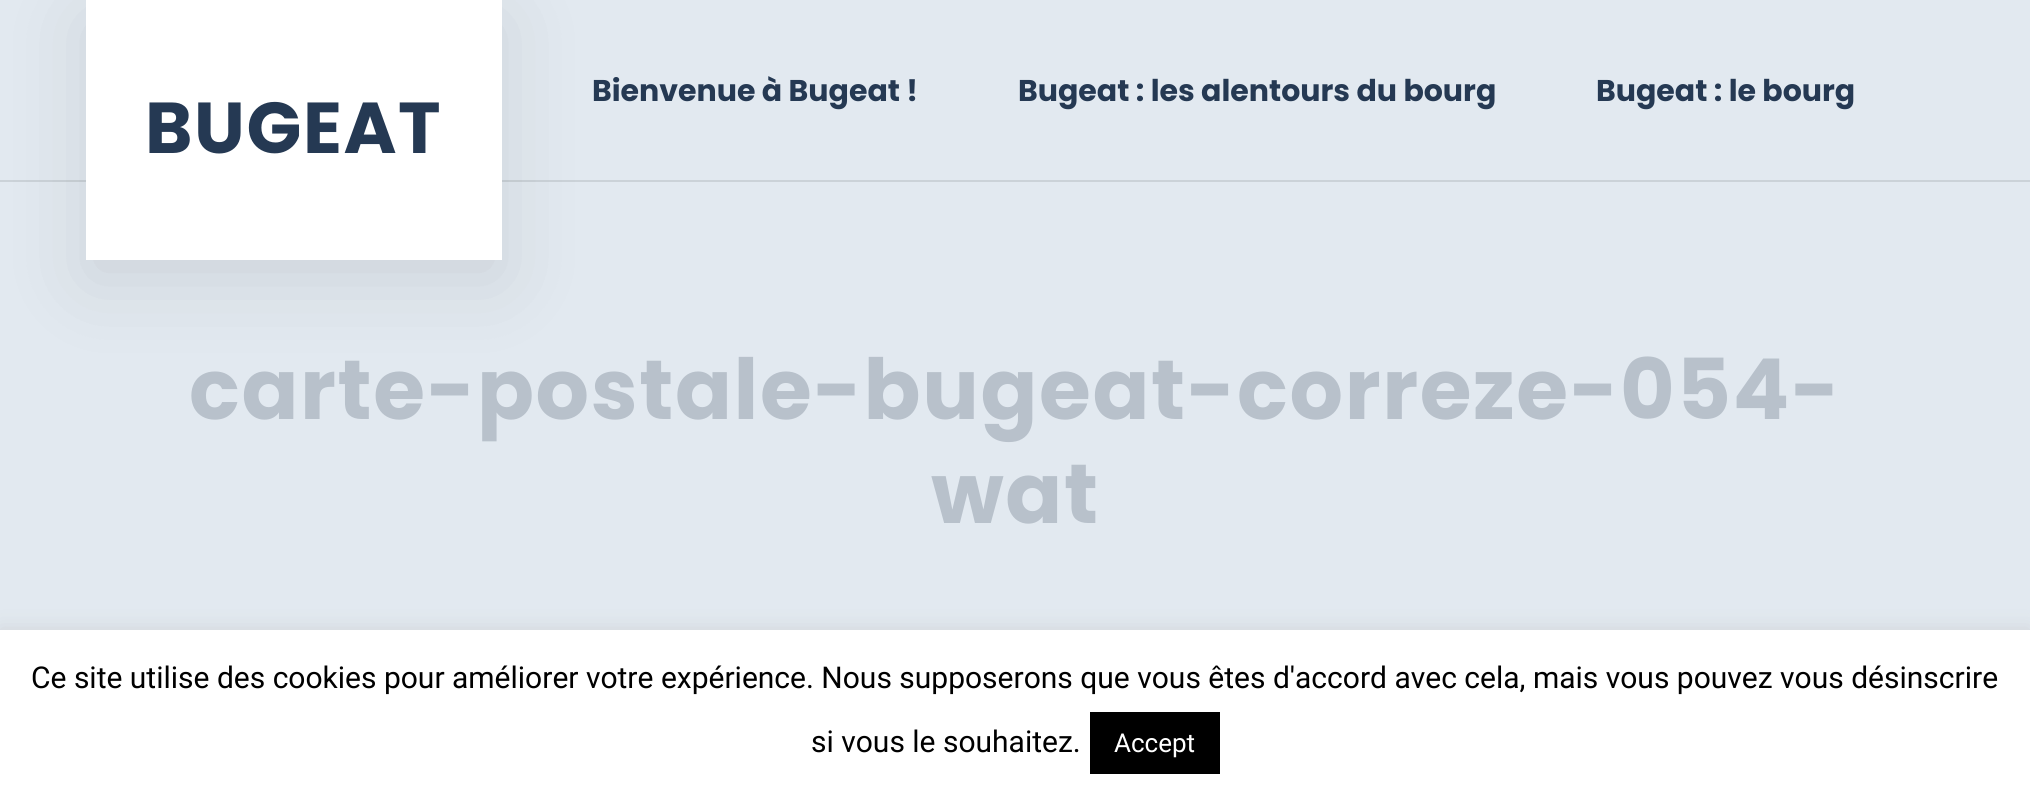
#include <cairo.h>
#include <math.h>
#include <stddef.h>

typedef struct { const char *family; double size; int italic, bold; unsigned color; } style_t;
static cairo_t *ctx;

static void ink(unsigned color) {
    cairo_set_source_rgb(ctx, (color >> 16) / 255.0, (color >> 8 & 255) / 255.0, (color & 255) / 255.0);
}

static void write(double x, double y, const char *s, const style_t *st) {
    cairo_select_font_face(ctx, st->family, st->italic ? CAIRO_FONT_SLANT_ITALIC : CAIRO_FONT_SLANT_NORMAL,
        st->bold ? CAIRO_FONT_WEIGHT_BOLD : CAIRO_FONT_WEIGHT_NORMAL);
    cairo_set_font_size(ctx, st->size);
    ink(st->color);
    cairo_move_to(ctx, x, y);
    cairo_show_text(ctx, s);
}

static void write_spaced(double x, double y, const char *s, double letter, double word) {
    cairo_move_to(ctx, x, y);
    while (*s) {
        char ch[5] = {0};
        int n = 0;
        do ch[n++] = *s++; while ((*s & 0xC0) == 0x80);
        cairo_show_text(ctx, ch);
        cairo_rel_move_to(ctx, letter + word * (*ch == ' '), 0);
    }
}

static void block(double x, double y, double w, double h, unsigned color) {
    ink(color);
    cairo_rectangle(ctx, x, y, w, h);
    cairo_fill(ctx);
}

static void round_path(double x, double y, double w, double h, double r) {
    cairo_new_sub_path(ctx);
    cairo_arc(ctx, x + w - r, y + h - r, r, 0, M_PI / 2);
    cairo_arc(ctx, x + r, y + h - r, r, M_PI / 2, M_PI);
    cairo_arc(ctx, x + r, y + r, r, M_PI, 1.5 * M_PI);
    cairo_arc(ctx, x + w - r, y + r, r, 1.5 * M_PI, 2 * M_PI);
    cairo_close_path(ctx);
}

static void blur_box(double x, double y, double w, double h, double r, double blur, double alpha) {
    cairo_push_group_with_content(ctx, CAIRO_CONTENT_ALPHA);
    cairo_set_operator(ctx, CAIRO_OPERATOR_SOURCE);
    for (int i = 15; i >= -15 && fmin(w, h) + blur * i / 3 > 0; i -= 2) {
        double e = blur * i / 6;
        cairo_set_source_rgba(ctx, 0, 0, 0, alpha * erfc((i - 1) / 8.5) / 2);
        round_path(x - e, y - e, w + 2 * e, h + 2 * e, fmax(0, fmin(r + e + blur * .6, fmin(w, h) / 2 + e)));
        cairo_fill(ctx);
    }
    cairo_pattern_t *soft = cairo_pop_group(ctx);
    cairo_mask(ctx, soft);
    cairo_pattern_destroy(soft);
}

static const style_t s1 = {"Poppins", 30, 0, 1, 0x253953};
static const style_t s2 = {"Roboto", 30, 0, 0, 0x000000};
static const style_t s3 = {"Roboto", 26, 0, 0, 0xffffff};

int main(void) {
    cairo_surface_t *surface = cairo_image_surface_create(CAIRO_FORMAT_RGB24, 2030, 797);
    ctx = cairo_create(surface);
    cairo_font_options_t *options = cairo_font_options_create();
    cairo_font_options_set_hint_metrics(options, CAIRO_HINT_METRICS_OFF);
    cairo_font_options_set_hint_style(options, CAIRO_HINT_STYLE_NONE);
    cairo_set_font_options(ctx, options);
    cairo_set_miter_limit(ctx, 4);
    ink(0xe2e9f0);
    cairo_paint(ctx);
    block(0, 180, 2030, 2, 0xcbd2d8);
    ink(0x000000);
    blur_box(86, 20, 416, 260, 0, 40, 0.1);
    write(592, 101, "Bienvenue à Bugeat !", &s1);
    write(1018, 101, "Bugeat : les alentours du bourg", &s1);
    write(1596, 101, "Bugeat : le bourg", &s1);
    block(86, 0, 416, 260, 0xffffff);
    cairo_set_font_size(ctx, 72);
    ink(0x253953);
    write_spaced(145, 153, "BUGEAT", 1.6, 0);
    cairo_set_font_size(ctx, 84);
    ink(0xb8c1cb);
    write_spaced(189, 419, "carte-postale-bugeat-correze-054-", 1.6, 0);
    write_spaced(931, 523, "wat", 1.6, 0);
    ink(0xacabab);
    blur_box(0, 628, 2030, 168, 0, 10, 0.3);
    block(0, 630, 2030, 167, 0xffffff);
    write(31, 688, "Ce site utilise des cookies pour améliorer votre expérience. Nous supposerons que vous êtes d'accord avec cela, mais vous pouvez vous désinscrire", &s2);
    write(811, 752, "si vous le souhaitez.", &s2);
    block(1090, 712, 130, 62, 0x000000);
    write(1114, 752, "Accept", &s3);
    cairo_surface_write_to_png(surface, "screenshot.png");
    cairo_font_options_destroy(options);
    cairo_destroy(ctx);
    cairo_surface_destroy(surface);
    return 0;
}
